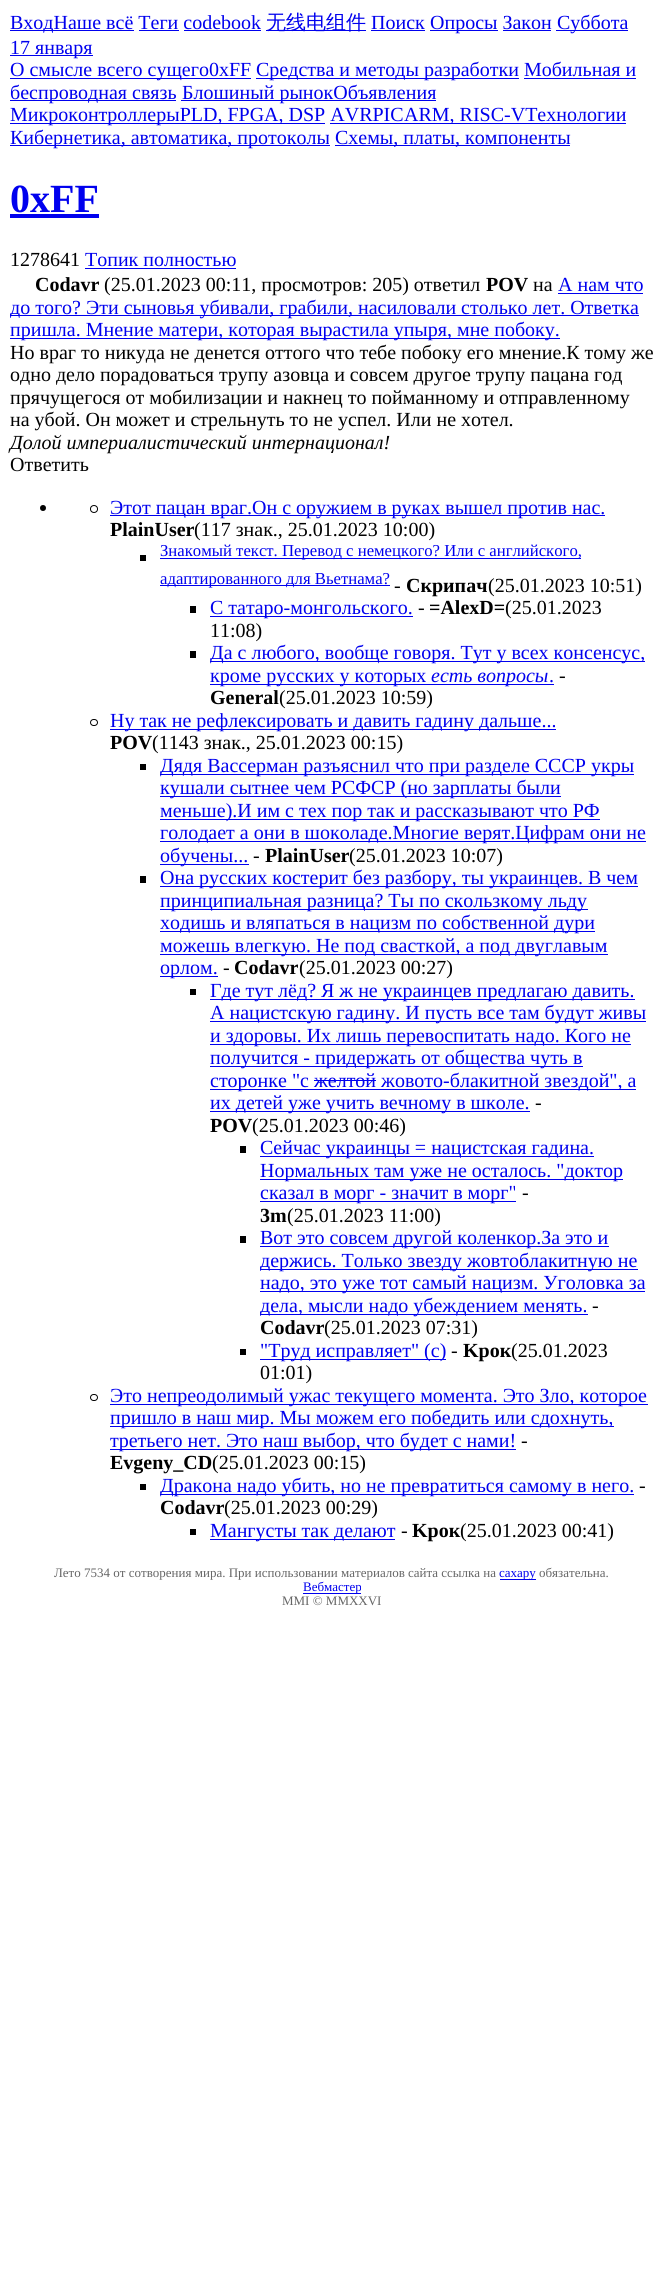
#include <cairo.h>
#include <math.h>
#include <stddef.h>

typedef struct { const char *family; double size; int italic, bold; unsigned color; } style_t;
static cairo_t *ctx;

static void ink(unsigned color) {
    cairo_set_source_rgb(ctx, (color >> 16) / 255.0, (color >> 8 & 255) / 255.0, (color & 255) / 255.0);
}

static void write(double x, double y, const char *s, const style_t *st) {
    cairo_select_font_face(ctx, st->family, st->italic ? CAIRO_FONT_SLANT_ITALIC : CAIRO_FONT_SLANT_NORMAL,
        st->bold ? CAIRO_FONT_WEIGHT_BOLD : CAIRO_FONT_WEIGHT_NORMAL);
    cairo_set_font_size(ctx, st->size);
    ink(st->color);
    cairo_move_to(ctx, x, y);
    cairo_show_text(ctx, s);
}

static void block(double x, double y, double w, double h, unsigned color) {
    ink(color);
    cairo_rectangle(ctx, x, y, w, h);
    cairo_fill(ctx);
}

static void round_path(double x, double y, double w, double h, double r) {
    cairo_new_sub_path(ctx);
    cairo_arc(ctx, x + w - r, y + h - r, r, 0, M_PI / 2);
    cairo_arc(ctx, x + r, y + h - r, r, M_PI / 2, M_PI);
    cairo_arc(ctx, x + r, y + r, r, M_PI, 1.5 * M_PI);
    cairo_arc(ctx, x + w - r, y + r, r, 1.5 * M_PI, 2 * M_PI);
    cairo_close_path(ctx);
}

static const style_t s1 = {"Liberation Serif", 20, 0, 0, 0x0000ee};
static const style_t s2 = {"WenQuanYi Zen Hei Medium", 20, 0, 0, 0x0000ee};
static const style_t s3 = {"Liberation Serif", 40, 0, 1, 0x0000ee};
static const style_t s4 = {"Liberation Serif", 20, 0, 0, 0x000000};
static const style_t s5 = {"Liberation Serif", 20, 0, 1, 0x000000};
static const style_t s6 = {"Liberation Serif", 20, 1, 0, 0x000000};
static const style_t s7 = {"Liberation Serif", 16.7, 0, 0, 0x0000ee};
static const style_t s8 = {"Liberation Serif", 20, 1, 0, 0x0000ee};
static const style_t s9 = {"Liberation Serif", 13, 0, 0, 0x666666};
static const style_t s10 = {"Liberation Serif", 13, 0, 0, 0x0000ee};

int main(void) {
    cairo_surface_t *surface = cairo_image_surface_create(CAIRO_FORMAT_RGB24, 663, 2296);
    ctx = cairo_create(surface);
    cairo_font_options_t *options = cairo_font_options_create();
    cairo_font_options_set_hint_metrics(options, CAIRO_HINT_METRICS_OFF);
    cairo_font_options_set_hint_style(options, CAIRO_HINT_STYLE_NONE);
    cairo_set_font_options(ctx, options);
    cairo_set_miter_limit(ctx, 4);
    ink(0xffffff);
    cairo_paint(ctx);
    block(10, 30, 124, 1, 0x0000ee);
    write(10, 29, "ВходНаше всё Теги codebook", &s1);
    block(266, 30, 100, 1, 0x0000ee);
    write(266, 29, "无线电组件", &s2);
    write(371, 29, "Поиск", &s1);
    block(371, 30, 54, 1, 0x0000ee);
    block(430, 30, 68, 1, 0x0000ee);
    write(430, 29, "Опросы Закон", &s1);
    block(556, 30, 72, 1, 0x0000ee);
    write(557, 29, "Суббота", &s1);
    block(139, 30, 40, 1, 0x0000ee);
    block(184, 30, 77, 1, 0x0000ee);
    block(503, 30, 48, 1, 0x0000ee);
    block(10, 55, 83, 1, 0x0000ee);
    write(10, 54, "17 января", &s1);
    block(10, 78, 241, 1, 0x0000ee);
    write(10, 76, "О смысле всего сущего0xFF", &s1);
    block(256, 78, 263, 1, 0x0000ee);
    write(256, 76, "Средства и методы разработки Мобильная и", &s1);
    block(10, 100, 166, 1, 0x0000ee);
    write(10, 99, "беспроводная связь", &s1);
    block(524, 78, 112, 1, 0x0000ee);
    block(181, 100, 255, 1, 0x0000ee);
    write(182, 99, "Блошиный рынокОбъявления", &s1);
    block(10, 123, 315, 1, 0x0000ee);
    write(10, 121, "МикроконтроллерыPLD, FPGA, DSP AVRPIC", &s1);
    block(330, 123, 296, 1, 0x0000ee);
    write(404, 121, "ARM, RISC-VТехнологии", &s1);
    block(10, 145, 320, 1, 0x0000ee);
    write(10, 144, "Кибернетика, автоматика, протоколы", &s1);
    block(335, 145, 235, 1, 0x0000ee);
    write(335, 144, "Схемы, платы, компоненты", &s1);
    write(10, 212, "0xFF", &s3);
    block(10, 214, 89, 4, 0x0000ee);
    write(10, 266, "1278641", &s4);
    write(85, 266, "Топик полностью", &s1);
    block(85, 268, 151, 1, 0x0000ee);
    write(35, 291, "Codavr", &s5);
    write(104, 291, "(25.01.2023 00:11, просмотров: 205) ответил", &s4);
    write(486, 291, "POV", &s5);
    write(533, 291, "на", &s4);
    write(558, 291, "А нам что", &s1);
    block(558, 293, 85, 1, 0x0000ee);
    block(10, 315, 629, 1, 0x0000ee);
    write(10, 314, "до того? Эти сыновья убивали, грабили, насиловали столько лет. Ответка", &s1);
    block(10, 338, 550, 1, 0x0000ee);
    write(10, 336, "пришла. Мнение матери, которая вырастила упыря, мне побоку.", &s1);
    write(10, 359, "Но враг то никуда не денется оттого что тебе побоку его мнение.К тому же", &s4);
    write(10, 381, "одно дело порадоваться трупу азовца и совсем другое трупу пацана год", &s4);
    write(10, 404, "прячущегося от мобилизации и накнец то пойманному и отправленному", &s4);
    write(10, 426, "на убой. Он может и стрельнуть то не успел. Или не хотел.", &s4);
    write(10, 449, "Долой империалистический интернационал!", &s6);
    write(10, 471, "Ответить", &s4);
    cairo_new_path(ctx);
    cairo_arc(ctx, 43, 508, 3, 0, 2 * M_PI);
    cairo_fill(ctx);
    cairo_arc(ctx, 94, 509, 3.5, 0, 2 * M_PI);
    cairo_set_line_width(ctx, 1);
    cairo_stroke(ctx);
    block(110, 515, 495, 1, 0x0000ee);
    write(110, 514, "Этот пацан враг.Он с оружием в руках вышел против нас.", &s1);
    write(110, 536, "PlainUser", &s5);
    write(194, 536, "(117 знак., 25.01.2023 10:00)", &s4);
    block(140, 555, 6, 6, 0x000000);
    block(160, 558, 421, 1, 0x0000ee);
    write(160, 556, "Знакомый текст. Перевод с немецкого? Или с английского,", &s7);
    block(160, 585, 230, 1, 0x0000ee);
    write(160, 584, "адаптированного для Вьетнама?", &s7);
    write(394, 592, "-", &s4);
    write(406, 592, "Cкpипaч", &s5);
    write(488, 592, "(25.01.2023 10:51)", &s4);
    block(190, 606, 6, 7, 0x000000);
    block(210, 616, 203, 1, 0x0000ee);
    write(210, 614, "С татаро-монгольского.", &s1);
    write(418, 614, "-", &s4);
    write(429, 614, "=AlexD=", &s5);
    write(505, 614, "(25.01.2023", &s4);
    write(210, 637, "11:08)", &s4);
    block(190, 651, 6, 7, 0x000000);
    block(210, 661, 435, 1, 0x0000ee);
    write(210, 659, "Да с любого, вообще говоря. Тут у всех консенсус,", &s1);
    block(210, 684, 344, 1, 0x0000ee);
    write(210, 682, "кроме русских у которых", &s1);
    write(431, 682, "есть вопросы", &s8);
    write(559, 682, "-", &s4);
    write(549, 682, ".", &s1);
    write(210, 704, "General", &s5);
    write(279, 704, "(25.01.2023 10:59)", &s4);
    round_path(90.5, 719.5, 7, 6, 3);
    cairo_stroke(ctx);
    block(110, 729, 446, 1, 0x0000ee);
    write(110, 727, "Ну так не рефлексировать и давить гадину дальше...", &s1);
    write(110, 749, "POV", &s5);
    write(152, 749, "(1143 знак., 25.01.2023 00:15)", &s4);
    block(140, 764, 6, 6, 0x000000);
    block(160, 774, 474, 1, 0x0000ee);
    write(160, 772, "Дядя Вассерман разъяснил что при разделе СССР укры", &s1);
    block(160, 796, 401, 1, 0x0000ee);
    write(160, 794, "кушали сытнее чем РСФСР (но зарплаты были", &s1);
    block(160, 819, 440, 1, 0x0000ee);
    write(160, 817, "меньше).И им с тех пор так и рассказывают что РФ", &s1);
    block(160, 841, 486, 1, 0x0000ee);
    write(160, 839, "голодает а они в шоколаде.Многие верят.Цифрам они не", &s1);
    block(160, 864, 89, 1, 0x0000ee);
    write(160, 862, "обучены...", &s1);
    write(253, 862, "-", &s4);
    write(265, 862, "PlainUser", &s5);
    write(349, 862, "(25.01.2023 10:07)", &s4);
    block(140, 876, 6, 7, 0x000000);
    block(160, 886, 478, 1, 0x0000ee);
    write(160, 884, "Она русских костерит без разбору, ты украинцев. В чем", &s1);
    block(160, 909, 428, 1, 0x0000ee);
    write(160, 907, "принципиальная разница? Ты по скользкому льду", &s1);
    block(160, 931, 435, 1, 0x0000ee);
    write(160, 929, "ходишь и вляпаться в нацизм по собственной дури", &s1);
    block(160, 954, 448, 1, 0x0000ee);
    write(160, 952, "можешь влегкую. Не под свасткой, а под двуглавым", &s1);
    block(160, 976, 58, 1, 0x0000ee);
    write(160, 974, "орлом.", &s1);
    write(223, 974, "-", &s4);
    write(234, 974, "Codavr", &s5);
    write(299, 974, "(25.01.2023 00:27)", &s4);
    block(190, 989, 6, 6, 0x000000);
    block(210, 999, 425, 1, 0x0000ee);
    write(210, 997, "Где тут лёд? Я ж не украинцев предлагаю давить.", &s1);
    block(210, 1021, 436, 1, 0x0000ee);
    write(210, 1019, "А нацистскую гадину. И пусть все там будут живы", &s1);
    block(210, 1044, 421, 1, 0x0000ee);
    write(210, 1042, "и здоровы. Их лишь перевоспитать надо. Кого не", &s1);
    block(210, 1066, 373, 1, 0x0000ee);
    write(210, 1064, "получится - придержать от общества чуть в", &s1);
    block(210, 1089, 426, 1, 0x0000ee);
    write(210, 1087, "сторонке \"с желтой жовото-блакитной звездой\", а", &s1);
    block(314, 1080, 62, 1, 0x0000ee);
    block(210, 1111, 320, 1, 0x0000ee);
    write(210, 1109, "их детей уже учить вечному в школе.", &s1);
    write(535, 1109, "-", &s4);
    write(210, 1132, "POV", &s5);
    write(252, 1132, "(25.01.2023 00:46)", &s4);
    block(240, 1146, 6, 7, 0x000000);
    block(260, 1156, 334, 1, 0x0000ee);
    write(260, 1154, "Сейчас украинцы = нацистская гадина.", &s1);
    block(260, 1179, 363, 1, 0x0000ee);
    write(260, 1177, "Нормальных там уже не осталось. \"доктор", &s1);
    block(260, 1201, 256, 1, 0x0000ee);
    write(260, 1199, "сказал в морг - значит в морг\"", &s1);
    write(522, 1199, "-", &s4);
    write(260, 1222, "3m", &s5);
    write(287, 1222, "(25.01.2023 11:00)", &s4);
    block(240, 1236, 6, 7, 0x000000);
    block(260, 1246, 349, 1, 0x0000ee);
    write(260, 1244, "Вот это совсем другой коленкор.За это и", &s1);
    block(260, 1269, 378, 1, 0x0000ee);
    write(260, 1267, "держись. Только звезду жовтоблакитную не", &s1);
    block(260, 1291, 385, 1, 0x0000ee);
    write(260, 1289, "надо, это уже тот самый нацизм. Уголовка за", &s1);
    block(260, 1314, 328, 1, 0x0000ee);
    write(260, 1312, "дела, мысли надо убеждением менять.", &s1);
    write(592, 1312, "-", &s4);
    write(260, 1334, "Codavr", &s5);
    write(324, 1334, "(25.01.2023 07:31)", &s4);
    block(240, 1349, 6, 6, 0x000000);
    block(260, 1359, 186, 1, 0x0000ee);
    write(260, 1357, "\"Труд исправляет\" (с)", &s1);
    write(451, 1357, "-", &s4);
    write(463, 1357, "Kpoк", &s5);
    write(511, 1357, "(25.01.2023", &s4);
    write(260, 1379, "01:01)", &s4);
    round_path(90.5, 1394.5, 7, 6, 3);
    cairo_stroke(ctx);
    block(110, 1404, 538, 1, 0x0000ee);
    write(110, 1402, "Это непреодолимый ужас текущего момента. Это Зло, которое", &s1);
    block(110, 1426, 504, 1, 0x0000ee);
    write(110, 1424, "пришло в наш мир. Мы можем его победить или сдохнуть,", &s1);
    block(110, 1449, 406, 1, 0x0000ee);
    write(110, 1447, "третьего нет. Это наш выбор, что будет с нами!", &s1);
    write(521, 1447, "-", &s4);
    write(110, 1469, "Evgeny_CD", &s5);
    write(212, 1469, "(25.01.2023 00:15)", &s4);
    block(140, 1484, 6, 6, 0x000000);
    block(160, 1494, 474, 1, 0x0000ee);
    write(160, 1492, "Дракона надо убить, но не превратиться самому в него.", &s1);
    write(639, 1492, "-", &s4);
    write(160, 1514, "Codavr", &s5);
    write(224, 1514, "(25.01.2023 00:29)", &s4);
    block(190, 1529, 6, 6, 0x000000);
    block(210, 1539, 185, 1, 0x0000ee);
    write(210, 1537, "Мангусты так делают", &s1);
    write(401, 1537, "-", &s4);
    write(412, 1537, "Kpoк", &s5);
    write(460, 1537, "(25.01.2023 00:41)", &s4);
    write(54, 1577, "Лето 7534 от сотворения мира. При использовании материалов сайта ссылка на", &s9);
    block(500, 1579, 36, 1, 0x0000ee);
    write(499, 1577, "caxapу", &s10);
    write(539, 1577, "обязательна.", &s9);
    block(303, 1593, 58, 1, 0x0000ee);
    write(303, 1591, "Вебмастер", &s10);
    write(282, 1605, "MMI © MMXXVI", &s9);
    cairo_surface_write_to_png(surface, "screenshot.png");
    cairo_font_options_destroy(options);
    cairo_destroy(ctx);
    cairo_surface_destroy(surface);
    return 0;
}
